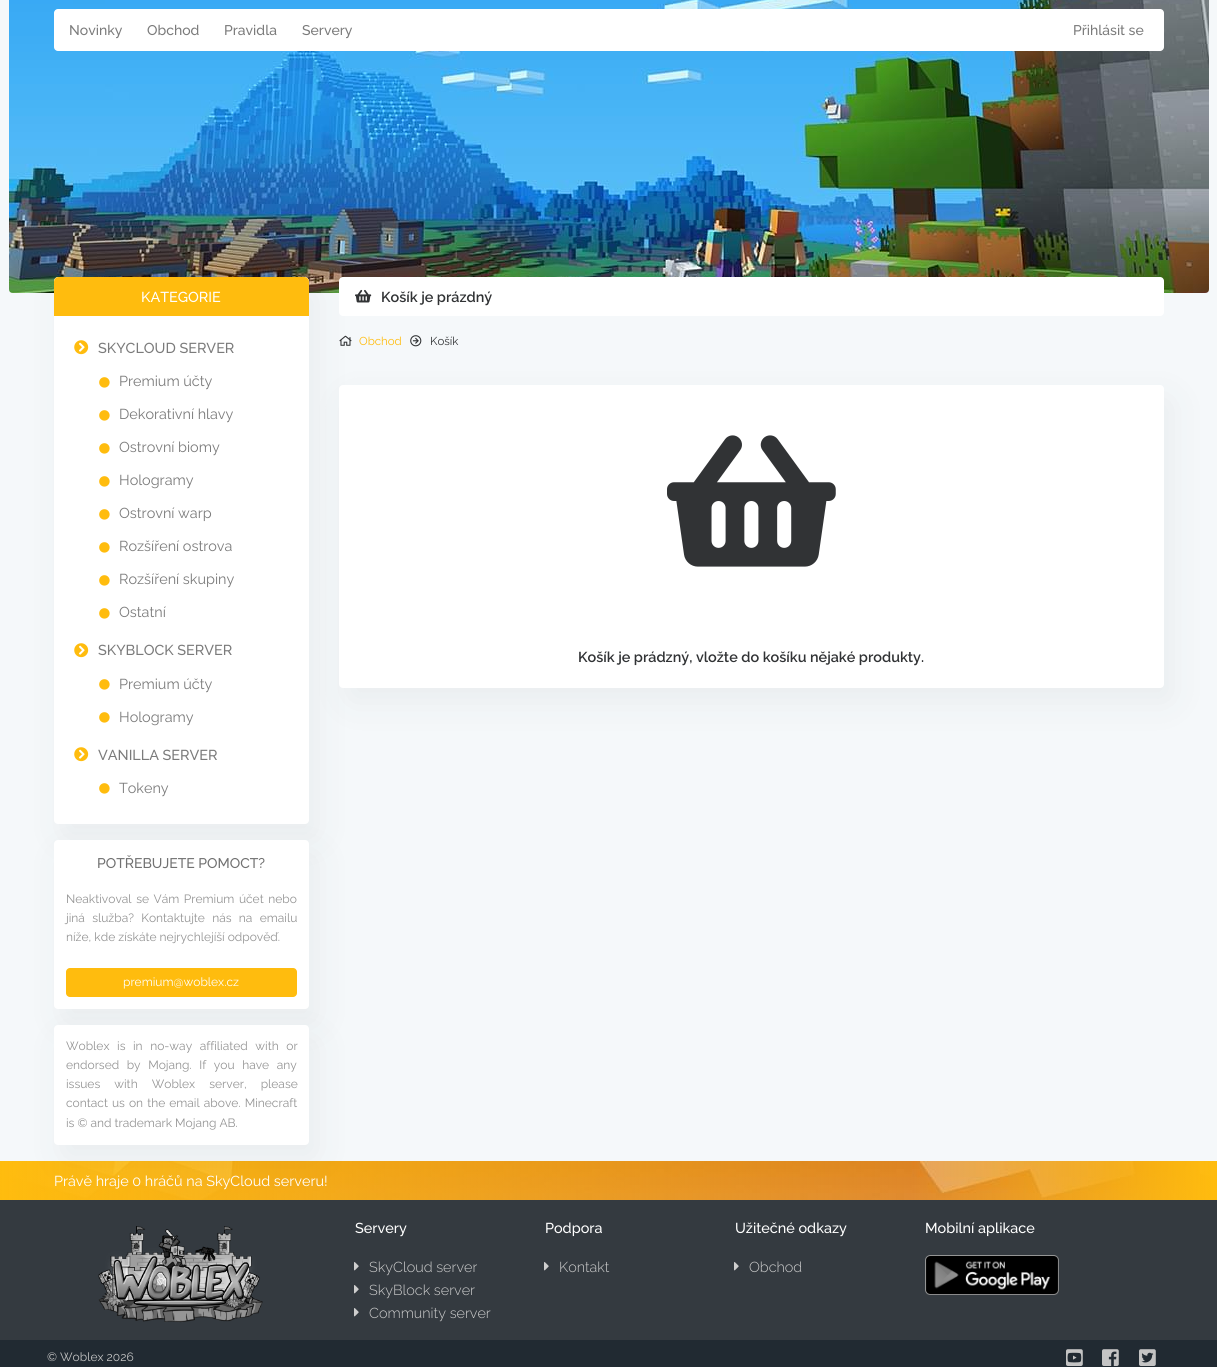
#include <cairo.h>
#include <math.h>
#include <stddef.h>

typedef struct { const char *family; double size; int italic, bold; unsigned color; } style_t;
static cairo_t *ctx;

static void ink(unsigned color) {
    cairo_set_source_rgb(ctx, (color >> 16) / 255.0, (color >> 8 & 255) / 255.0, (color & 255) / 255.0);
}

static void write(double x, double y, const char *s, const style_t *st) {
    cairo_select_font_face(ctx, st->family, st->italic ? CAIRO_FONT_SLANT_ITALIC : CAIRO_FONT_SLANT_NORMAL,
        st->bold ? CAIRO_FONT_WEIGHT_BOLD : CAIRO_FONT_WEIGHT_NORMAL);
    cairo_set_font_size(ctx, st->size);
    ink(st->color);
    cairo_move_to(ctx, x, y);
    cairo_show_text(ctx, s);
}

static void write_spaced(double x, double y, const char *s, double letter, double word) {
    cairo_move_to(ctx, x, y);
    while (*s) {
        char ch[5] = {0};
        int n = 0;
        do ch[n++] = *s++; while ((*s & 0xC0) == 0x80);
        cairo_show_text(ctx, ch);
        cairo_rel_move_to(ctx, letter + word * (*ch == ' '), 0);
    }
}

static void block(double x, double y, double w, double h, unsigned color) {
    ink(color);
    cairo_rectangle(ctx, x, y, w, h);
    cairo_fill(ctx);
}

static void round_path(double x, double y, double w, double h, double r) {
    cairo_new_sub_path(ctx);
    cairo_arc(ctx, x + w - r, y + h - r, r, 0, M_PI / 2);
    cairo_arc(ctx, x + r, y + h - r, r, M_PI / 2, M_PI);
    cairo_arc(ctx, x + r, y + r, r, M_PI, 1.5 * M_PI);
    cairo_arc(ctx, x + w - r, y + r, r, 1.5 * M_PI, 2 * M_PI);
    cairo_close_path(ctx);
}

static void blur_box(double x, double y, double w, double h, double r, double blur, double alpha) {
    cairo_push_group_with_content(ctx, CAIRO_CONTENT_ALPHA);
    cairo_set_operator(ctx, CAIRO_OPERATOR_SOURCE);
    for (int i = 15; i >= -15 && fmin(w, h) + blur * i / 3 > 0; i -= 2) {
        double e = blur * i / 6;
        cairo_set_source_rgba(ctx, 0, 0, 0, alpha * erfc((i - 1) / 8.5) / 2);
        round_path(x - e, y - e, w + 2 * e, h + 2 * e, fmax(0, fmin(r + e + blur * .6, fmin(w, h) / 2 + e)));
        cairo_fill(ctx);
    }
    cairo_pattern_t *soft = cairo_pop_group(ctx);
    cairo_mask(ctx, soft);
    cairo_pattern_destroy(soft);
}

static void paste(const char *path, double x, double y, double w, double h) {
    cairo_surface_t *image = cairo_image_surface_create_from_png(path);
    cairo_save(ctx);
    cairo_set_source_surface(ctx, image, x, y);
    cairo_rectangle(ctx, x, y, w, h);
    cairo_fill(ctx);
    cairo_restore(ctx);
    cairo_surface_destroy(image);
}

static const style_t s1 = {"Raleway Medium", 14, 0, 0, 0x7b7b7b};
static const style_t s2 = {"Raleway Medium", 14.4, 0, 0, 0xffffff};
static const style_t s3 = {"Raleway Medium", 14.4, 0, 0, 0x7b7b7b};
static const style_t s4 = {"Raleway", 14.4, 0, 0, 0x7b7b7b};
static const style_t s5 = {"Raleway Medium", 14, 0, 0, 0x717171};
static const style_t s6 = {"Raleway", 12, 0, 0, 0x949494};
static const style_t s7 = {"Raleway", 12, 0, 0, 0xffffff};
static const style_t s8 = {"Raleway SemiBold", 14.4, 0, 0, 0x313335};
static const style_t s9 = {"Raleway", 11.5, 0, 0, 0xffbc0e};
static const style_t s10 = {"Raleway", 11.5, 0, 0, 0x313335};
static const style_t s11 = {"Raleway", 14.4, 0, 0, 0xffffff};
static const style_t s12 = {"Raleway Light", 14.4, 0, 0, 0xcecece};
static const style_t s13 = {"Raleway", 12, 0, 0, 0xc4c4c4};

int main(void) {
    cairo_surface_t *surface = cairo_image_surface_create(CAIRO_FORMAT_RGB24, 1217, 1367);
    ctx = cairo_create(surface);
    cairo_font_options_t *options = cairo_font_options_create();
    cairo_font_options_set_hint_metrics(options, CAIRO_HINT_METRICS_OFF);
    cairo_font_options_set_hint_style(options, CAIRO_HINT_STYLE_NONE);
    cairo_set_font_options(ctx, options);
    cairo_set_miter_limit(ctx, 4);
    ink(0xf5f8fa);
    cairo_paint(ctx);
    paste("pic1.png", 9, 0, 1200, 293);
    ink(0xffffff);
    round_path(54, 9, 1110, 42, 4);
    cairo_fill(ctx);
    write(69, 35, "Novinky", &s1);
    write(147, 35, "Obchod", &s1);
    write(224, 35, "Pravidla", &s1);
    write(302, 35, "Servery", &s1);
    write(1073, 35, "Přihlásit se", &s1);
    ink(0x272c31);
    blur_box(62, 291, 255, 547, 4, 19, 0.06);
    ink(0xffffff);
    round_path(54, 277, 255, 547, 4);
    cairo_fill(ctx);
    ink(0xffbc0e);
    cairo_new_path(ctx);
    cairo_move_to(ctx, 59, 277);
    cairo_line_to(ctx, 304, 277);
    cairo_curve_to(ctx, 307, 277, 309, 279, 309, 282);
    cairo_line_to(ctx, 309, 316);
    cairo_line_to(ctx, 54, 316);
    cairo_line_to(ctx, 54, 282);
    cairo_curve_to(ctx, 54, 279, 56, 277, 59, 277);
    cairo_close_path(ctx);
    cairo_fill(ctx);
    write(141, 302, "KATEGORIE", &s2);
    paste("pic2.png", 74, 340, 15, 15);
    write(98, 353, "SKYCLOUD SERVER", &s3);
    paste("pic3.png", 99, 377, 11, 11);
    write(119, 386, "Premium účty", &s4);
    paste("pic3.png", 99, 410, 11, 11);
    write(119, 419, "Dekorativní hlavy", &s4);
    paste("pic3.png", 99, 443, 11, 11);
    write(119, 452, "Ostrovní biomy", &s4);
    paste("pic3.png", 99, 476, 11, 11);
    write(119, 485, "Hologramy", &s4);
    paste("pic3.png", 99, 509, 11, 11);
    write(119, 518, "Ostrovní warp", &s4);
    paste("pic3.png", 99, 542, 11, 11);
    write(119, 551, "Rozšíření ostrova", &s4);
    paste("pic3.png", 99, 575, 11, 11);
    write(119, 584, "Rozšíření skupiny", &s4);
    paste("pic3.png", 99, 608, 11, 11);
    write(119, 617, "Ostatní", &s4);
    paste("pic2.png", 74, 643, 15, 15);
    write(98, 655, "SKYBLOCK SERVER", &s3);
    paste("pic3.png", 99, 679, 11, 11);
    write(119, 689, "Premium účty", &s4);
    paste("pic3.png", 99, 712, 11, 11);
    write(119, 722, "Hologramy", &s4);
    paste("pic2.png", 74, 747, 15, 15);
    write(98, 760, "VANILLA SERVER", &s3);
    paste("pic3.png", 99, 783, 11, 11);
    ink(0x272c31);
    blur_box(62, 854, 255, 169, 4, 19, 0.06);
    write(119, 793, "Tokeny", &s4);
    ink(0xffffff);
    round_path(54, 840, 255, 169, 4);
    cairo_fill(ctx);
    write(97, 868, "POTŘEBUJETE POMOCT?", &s5);
    cairo_select_font_face(ctx, "Raleway", CAIRO_FONT_SLANT_NORMAL, CAIRO_FONT_WEIGHT_NORMAL);
    cairo_set_font_size(ctx, 12);
    ink(0x949494);
    write_spaced(66, 903, "Neaktivoval se Vám Premium účet nebo", 0, 1.5);
    write_spaced(66, 922, "jiná služba? Kontaktujte nás na emailu", 0, 4.25);
    write(66, 941, "níže, kde získáte nejrychlejíší odpověď.", &s6);
    ink(0xffbc0e);
    round_path(66, 968, 231, 29, 4);
    cairo_fill(ctx);
    paste("pic8.png", 0, 1161, 1217, 39);
    block(0, 1200, 1217, 140, 0x343a40);
    ink(0x272c31);
    blur_box(62, 1039, 255, 120, 4, 19, 0.06);
    write(123, 986, "premium@woblex.cz", &s7);
    round_path(54, 1025, 255, 120, 4);
    cairo_fill(ctx);
    ink(0x949494);
    write_spaced(66, 1050, "Woblex is in no-way affiliated with or", 0, 4.5);
    write_spaced(66, 1069, "endorsed by Mojang. If you have any", 0, 4.5);
    write_spaced(66, 1088, "issues with Woblex server, please", 0, 11);
    write_spaced(66, 1107, "contact us on the email above. Minecraft", 0, 1);
    write(66, 1127, "is © and trademark Mojang AB.", &s6);
    ink(0xffffff);
    round_path(339, 277, 825, 39, 4);
    cairo_fill(ctx);
    paste("pic4.png", 355, 289, 17, 14);
    write(381, 302, "Košík je prázdný", &s8);
    ink(0x272c31);
    blur_box(347, 399, 825, 303, 4, 19, 0.06);
    paste("pic5.png", 339, 335, 13, 11);
    write(359, 345, "Obchod", &s9);
    paste("pic6.png", 410, 335, 12, 12);
    write(430, 345, "Košík", &s10);
    ink(0xffffff);
    round_path(339, 385, 825, 303, 4);
    cairo_fill(ctx);
    paste("pic7.png", 667, 435, 169, 132);
    write(578, 662, "Košík je prádzný, vložte do košíku nějaké produkty.", &s8);
    write(54, 1186, "Právě hraje 0 hráčů na SkyCloud serveru!", &s11);
    paste("pic9.png", 98, 1226, 165, 97);
    write(355, 1233, "Servery", &s2);
    paste("pic10.png", 354, 1262, 5, 9);
    write(369, 1272, "SkyCloud server", &s12);
    paste("pic10.png", 354, 1285, 5, 9);
    write(369, 1295, "SkyBlock server", &s12);
    paste("pic10.png", 354, 1308, 5, 9);
    write(369, 1318, "Community server", &s12);
    write(545, 1233, "Podpora", &s2);
    paste("pic10.png", 544, 1262, 5, 9);
    write(559, 1272, "Kontakt", &s12);
    write(735, 1233, "Užitečné odkazy", &s2);
    paste("pic10.png", 734, 1262, 5, 9);
    write(749, 1272, "Obchod", &s12);
    write(925, 1233, "Mobilní aplikace", &s2);
    paste("pic11.png", 925, 1255, 134, 40);
    block(0, 1340, 1217, 27, 0x212a32);
    write(47, 1361, "© Woblex 2026", &s13);
    paste("pic12.png", 1066, 1349, 17, 17);
    paste("pic13.png", 1102, 1349, 17, 17);
    paste("pic14.png", 1139, 1349, 17, 17);
    cairo_surface_write_to_png(surface, "screenshot.png");
    cairo_font_options_destroy(options);
    cairo_destroy(ctx);
    cairo_surface_destroy(surface);
    return 0;
}
